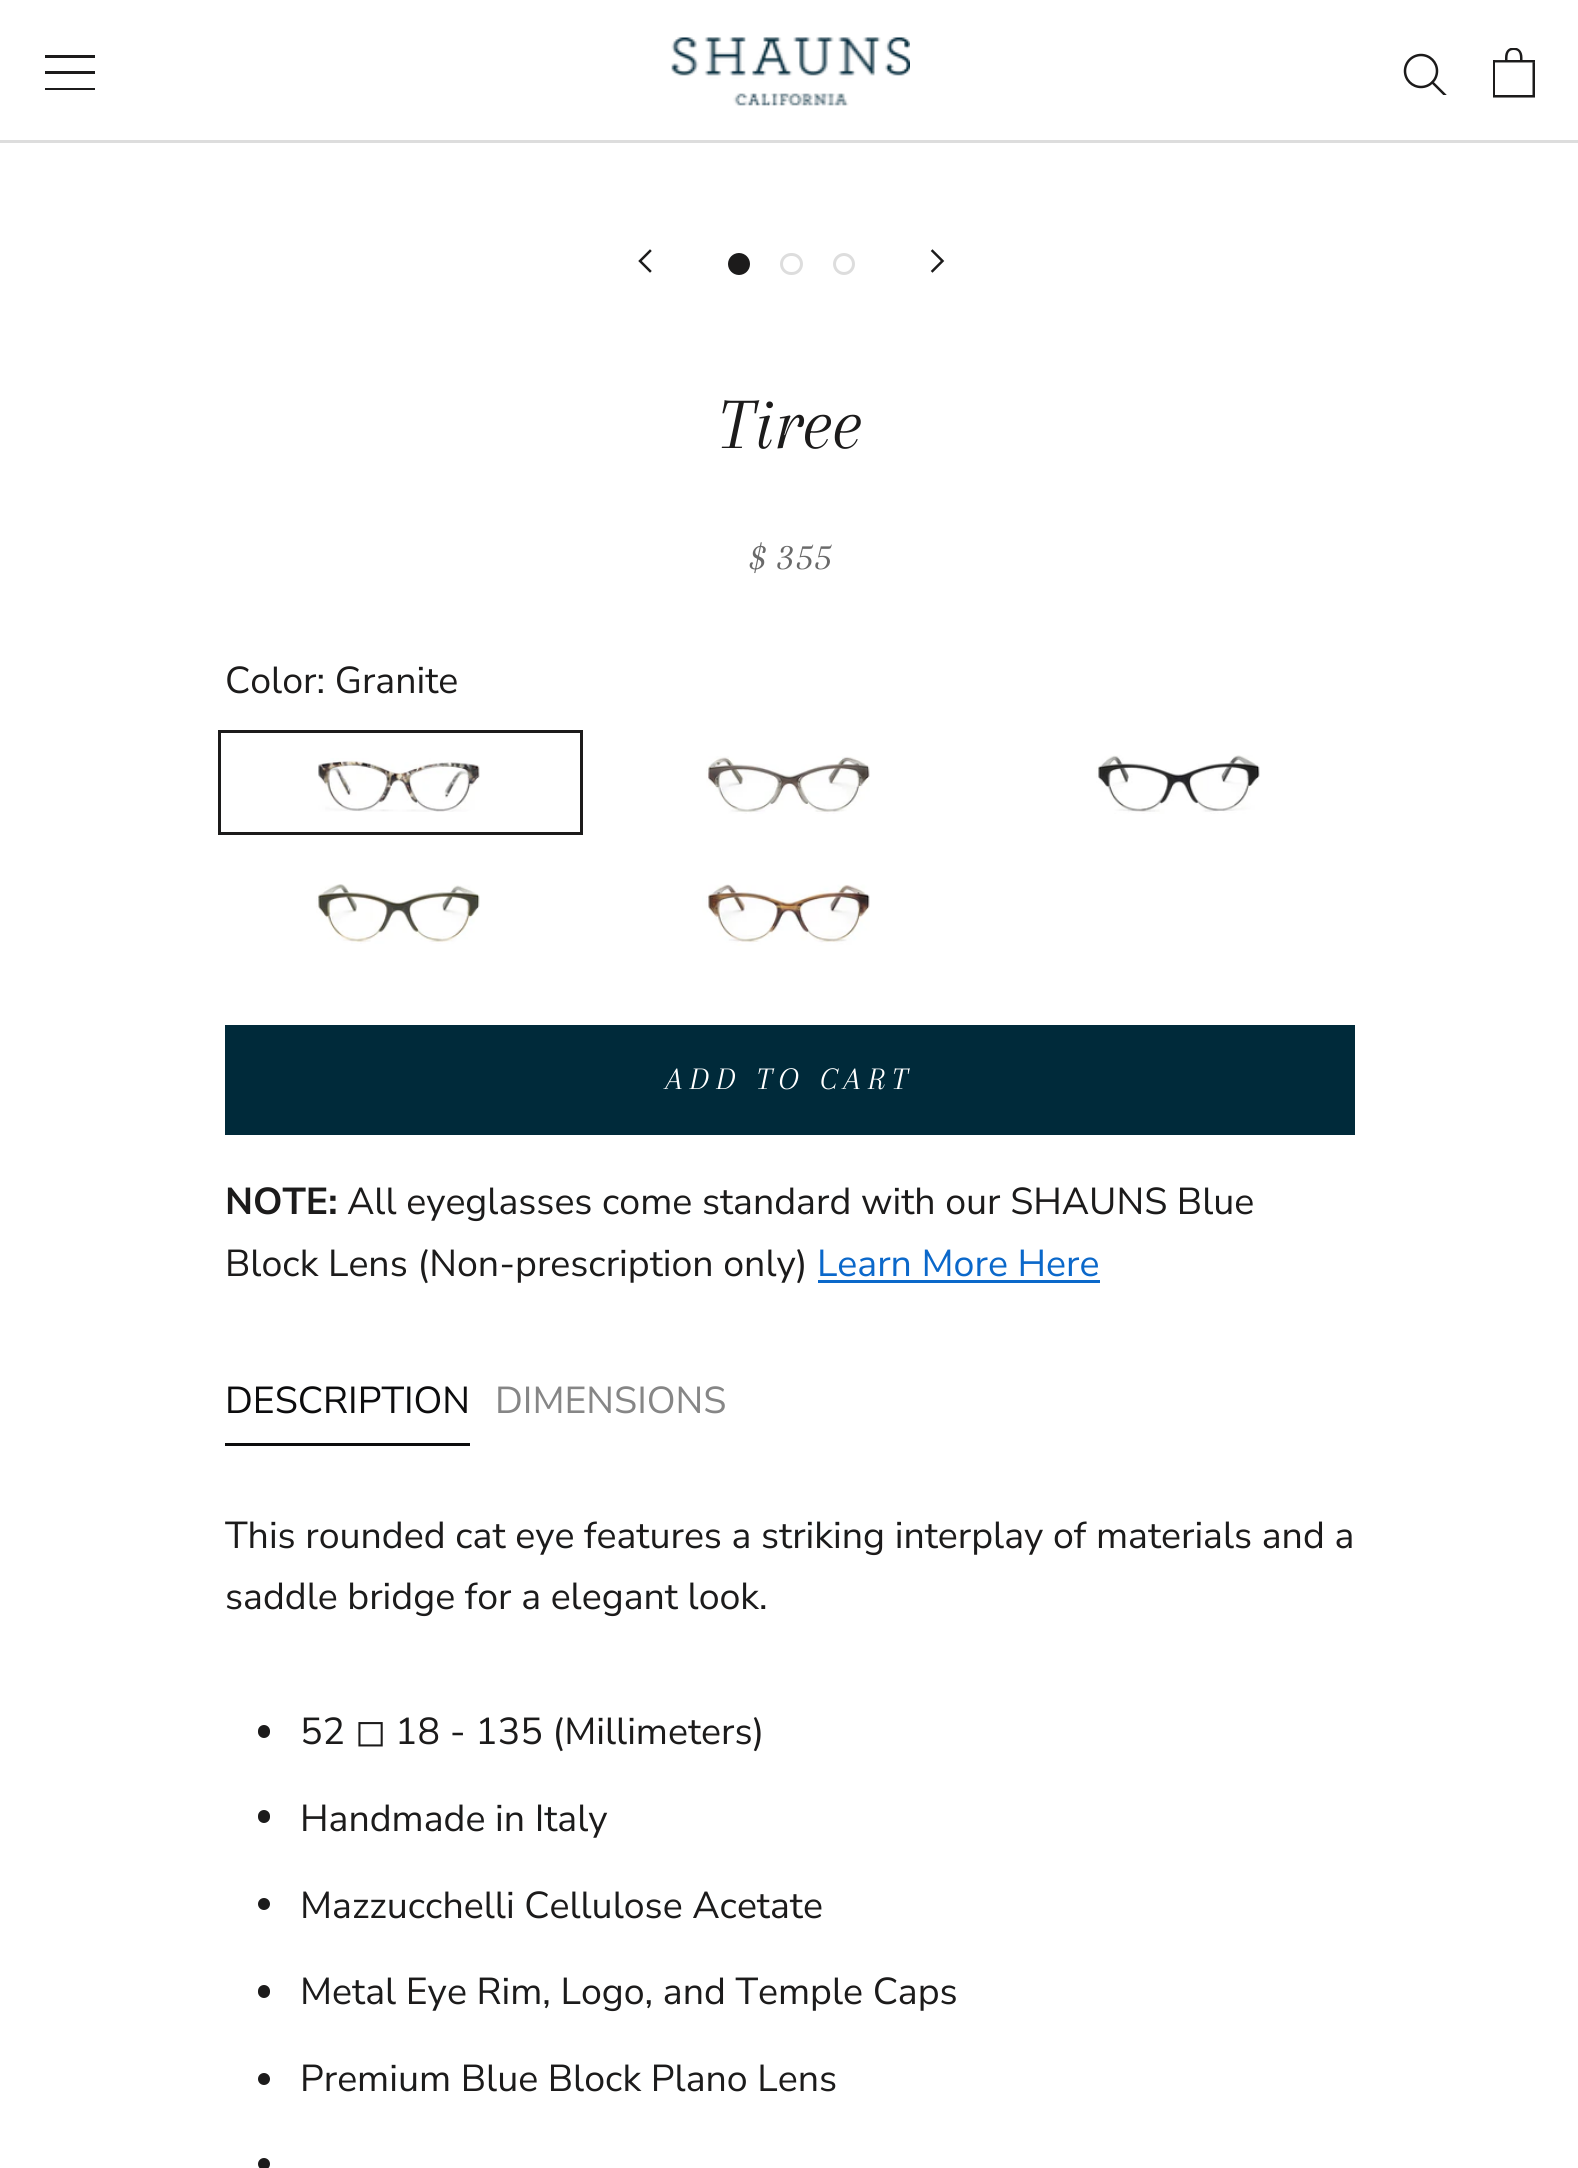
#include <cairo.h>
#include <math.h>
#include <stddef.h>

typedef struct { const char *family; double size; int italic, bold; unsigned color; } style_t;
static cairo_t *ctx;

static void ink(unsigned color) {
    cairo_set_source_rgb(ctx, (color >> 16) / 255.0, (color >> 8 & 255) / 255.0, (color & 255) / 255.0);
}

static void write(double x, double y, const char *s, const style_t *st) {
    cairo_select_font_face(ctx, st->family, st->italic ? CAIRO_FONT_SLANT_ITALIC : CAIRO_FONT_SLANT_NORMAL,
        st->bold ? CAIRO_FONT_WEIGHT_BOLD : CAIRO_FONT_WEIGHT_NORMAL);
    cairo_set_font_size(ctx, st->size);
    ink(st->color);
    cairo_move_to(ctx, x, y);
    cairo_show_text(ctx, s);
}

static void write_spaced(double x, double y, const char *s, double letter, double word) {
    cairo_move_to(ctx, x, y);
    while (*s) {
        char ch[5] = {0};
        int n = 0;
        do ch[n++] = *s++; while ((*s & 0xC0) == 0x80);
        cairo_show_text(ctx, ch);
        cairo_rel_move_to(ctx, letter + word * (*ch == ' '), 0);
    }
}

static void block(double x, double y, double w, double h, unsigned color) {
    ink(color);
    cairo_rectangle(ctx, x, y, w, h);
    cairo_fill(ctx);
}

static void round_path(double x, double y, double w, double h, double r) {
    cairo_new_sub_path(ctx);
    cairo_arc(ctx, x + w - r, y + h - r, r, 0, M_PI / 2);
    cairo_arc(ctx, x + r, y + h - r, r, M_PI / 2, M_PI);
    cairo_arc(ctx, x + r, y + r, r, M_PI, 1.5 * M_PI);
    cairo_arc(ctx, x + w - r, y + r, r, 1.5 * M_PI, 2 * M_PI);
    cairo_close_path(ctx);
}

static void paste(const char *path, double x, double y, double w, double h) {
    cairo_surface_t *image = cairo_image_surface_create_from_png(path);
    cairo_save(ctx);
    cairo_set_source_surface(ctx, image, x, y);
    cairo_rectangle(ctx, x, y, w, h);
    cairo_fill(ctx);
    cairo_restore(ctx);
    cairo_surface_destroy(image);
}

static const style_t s1 = {"Arapey", 75, 1, 0, 0x1c1b1b};
static const style_t s2 = {"Arapey", 40, 1, 0, 0x6a6a6a};
static const style_t s3 = {"Nunito Sans", 37.5, 0, 0, 0x1c1b1b};
static const style_t s4 = {"Nunito Sans", 37.5, 0, 1, 0x1c1b1b};
static const style_t s5 = {"Nunito Sans", 37.5, 0, 0, 0x0b68ca};
static const style_t s6 = {"Nunito Sans", 37.5, 0, 0, 0x0c0c0d};
static const style_t s7 = {"Nunito Sans", 37.5, 0, 0, 0x868686};
static const style_t s8 = {"DejaVu Sans", 37.5, 0, 0, 0x1c1b1b};

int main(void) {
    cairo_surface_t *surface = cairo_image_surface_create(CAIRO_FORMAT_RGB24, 1578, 2168);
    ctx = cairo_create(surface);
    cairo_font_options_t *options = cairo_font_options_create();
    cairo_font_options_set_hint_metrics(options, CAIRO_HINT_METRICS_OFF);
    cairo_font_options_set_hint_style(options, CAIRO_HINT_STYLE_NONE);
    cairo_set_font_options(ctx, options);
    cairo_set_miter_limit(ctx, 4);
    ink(0xffffff);
    cairo_paint(ctx);
    block(0, 140, 1578, 3, 0xdddddd);
    ink(0x1c1b1b);
    cairo_new_path(ctx);
    cairo_move_to(ctx, 45, 90);
    cairo_line_to(ctx, 45, 88);
    cairo_line_to(ctx, 95, 88);
    cairo_line_to(ctx, 95, 90);
    cairo_close_path(ctx);
    cairo_move_to(ctx, 45, 71);
    cairo_line_to(ctx, 95, 71);
    cairo_line_to(ctx, 95, 74);
    cairo_line_to(ctx, 45, 74);
    cairo_close_path(ctx);
    cairo_move_to(ctx, 45, 55);
    cairo_line_to(ctx, 95, 55);
    cairo_line_to(ctx, 95, 58);
    cairo_line_to(ctx, 45, 58);
    cairo_close_path(ctx);
    cairo_fill(ctx);
    paste("pic1.png", 671, 37, 239, 69);
    cairo_save(ctx);
    cairo_rectangle(ctx, 1403, 53, 45, 42);
    cairo_clip(ctx);
    cairo_new_path(ctx);
    cairo_move_to(ctx, 1445, 95);
    cairo_line_to(ctx, 1432.5, 82.5);
    cairo_set_line_width(ctx, 2.5);
    cairo_set_line_cap(ctx, CAIRO_LINE_CAP_SQUARE);
    cairo_stroke(ctx);
    cairo_restore(ctx);
    cairo_arc(ctx, 1421, 71, 16, 0, 2 * M_PI);
    cairo_set_line_width(ctx, 2.5);
    cairo_stroke(ctx);
    paste("pic2.png", 1493, 48, 42, 50);
    cairo_new_path(ctx);
    cairo_move_to(ctx, 650, 271);
    cairo_line_to(ctx, 640, 261);
    cairo_line_to(ctx, 650, 251);
    cairo_set_line_cap(ctx, CAIRO_LINE_CAP_SQUARE);
    cairo_stroke(ctx);
    cairo_arc(ctx, 739, 264, 9.5, 0, 2 * M_PI);
    cairo_fill_preserve(ctx);
    cairo_set_line_width(ctx, 3);
    cairo_set_line_cap(ctx, CAIRO_LINE_CAP_BUTT);
    cairo_stroke(ctx);
    round_path(781.5, 254.5, 20, 19, 9.5);
    ink(0xdddddd);
    cairo_stroke(ctx);
    cairo_arc(ctx, 844, 264, 9.5, 0, 2 * M_PI);
    cairo_stroke(ctx);
    cairo_new_path(ctx);
    cairo_move_to(ctx, 932.5, 271);
    cairo_line_to(ctx, 942.5, 261);
    cairo_line_to(ctx, 932.5, 251);
    ink(0x1c1b1b);
    cairo_set_line_width(ctx, 2.5);
    cairo_set_line_cap(ctx, CAIRO_LINE_CAP_SQUARE);
    cairo_stroke(ctx);
    write(718, 448, "Tiree", &s1);
    write(749, 569, "$ 355", &s2);
    write(225, 693, "Color: Granite", &s3);
    paste("pic3.png", 318, 758, 162, 54);
    cairo_rectangle(ctx, 219.5, 731.5, 362, 102);
    cairo_set_line_width(ctx, 3);
    cairo_set_line_cap(ctx, CAIRO_LINE_CAP_BUTT);
    cairo_stroke(ctx);
    paste("pic4.png", 706, 756, 164, 58);
    paste("pic5.png", 1096, 755, 164, 59);
    paste("pic6.png", 316, 884, 164, 60);
    paste("pic7.png", 702, 884, 168, 62);
    cairo_rectangle(ctx, 226.5, 1026.5, 1127, 107);
    ink(0x002a3a);
    cairo_stroke(ctx);
    block(228, 1028, 1124, 104, 0x002a3a);
    cairo_select_font_face(ctx, "Arapey", CAIRO_FONT_SLANT_ITALIC, CAIRO_FONT_WEIGHT_NORMAL);
    cairo_set_font_size(ctx, 32.5);
    ink(0xffffff);
    write_spaced(666, 1089, "ADD TO CART", 6.5, 0);
    write(225, 1214, "NOTE:", &s4);
    write(347, 1214, "All eyeglasses come standard with our SHAUNS Blue", &s3);
    write(225, 1276, "Block Lens (Non-prescription only)", &s3);
    write(817, 1276, "Learn More Here", &s5);
    block(818, 1280, 282, 3, 0x0b68ca);
    block(225, 1443, 245, 3, 0x0c0c0d);
    write(225, 1413, "DESCRIPTION", &s6);
    write(495, 1413, "DIMENSIONS", &s7);
    write(225, 1548, "This rounded cat eye features a striking interplay of materials and a", &s3);
    write(225, 1609, "saddle bridge for a elegant look.", &s3);
    round_path(258, 1725, 12, 13, 6);
    cairo_fill(ctx);
    write(300, 1744, "52", &s3);
    write(355, 1744, "◻", &s8);
    write(395, 1744, "18 - 135 (Millimeters)", &s3);
    round_path(258, 1810, 12, 13, 6);
    cairo_fill(ctx);
    write(300, 1831, "Handmade in Italy", &s3);
    cairo_new_path(ctx);
    cairo_arc(ctx, 264, 1904, 6, 0, 2 * M_PI);
    cairo_fill(ctx);
    write(300, 1918, "Mazzucchelli Cellulose Acetate", &s3);
    round_path(258, 1985, 12, 13, 6);
    cairo_fill(ctx);
    write(300, 2004, "Metal Eye Rim, Logo, and Temple Caps", &s3);
    cairo_new_path(ctx);
    cairo_arc(ctx, 264, 2079, 6, 0, 2 * M_PI);
    cairo_fill(ctx);
    write(300, 2091, "Premium Blue Block Plano Lens", &s3);
    cairo_new_path(ctx);
    cairo_arc(ctx, 264, 2164, 6, 0, 2 * M_PI);
    cairo_fill(ctx);
    cairo_surface_write_to_png(surface, "screenshot.png");
    cairo_font_options_destroy(options);
    cairo_destroy(ctx);
    cairo_surface_destroy(surface);
    return 0;
}
